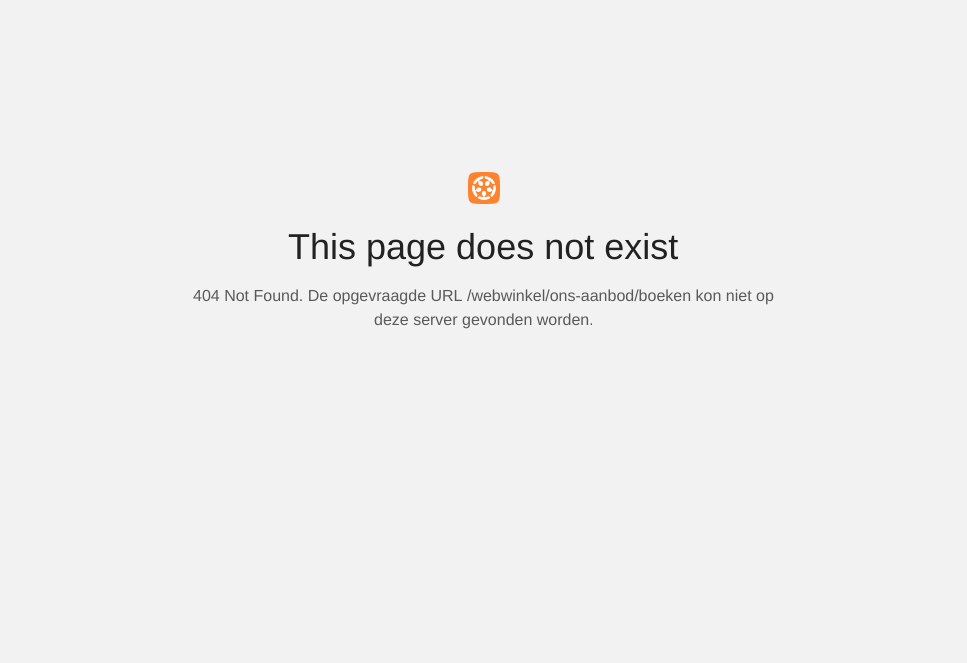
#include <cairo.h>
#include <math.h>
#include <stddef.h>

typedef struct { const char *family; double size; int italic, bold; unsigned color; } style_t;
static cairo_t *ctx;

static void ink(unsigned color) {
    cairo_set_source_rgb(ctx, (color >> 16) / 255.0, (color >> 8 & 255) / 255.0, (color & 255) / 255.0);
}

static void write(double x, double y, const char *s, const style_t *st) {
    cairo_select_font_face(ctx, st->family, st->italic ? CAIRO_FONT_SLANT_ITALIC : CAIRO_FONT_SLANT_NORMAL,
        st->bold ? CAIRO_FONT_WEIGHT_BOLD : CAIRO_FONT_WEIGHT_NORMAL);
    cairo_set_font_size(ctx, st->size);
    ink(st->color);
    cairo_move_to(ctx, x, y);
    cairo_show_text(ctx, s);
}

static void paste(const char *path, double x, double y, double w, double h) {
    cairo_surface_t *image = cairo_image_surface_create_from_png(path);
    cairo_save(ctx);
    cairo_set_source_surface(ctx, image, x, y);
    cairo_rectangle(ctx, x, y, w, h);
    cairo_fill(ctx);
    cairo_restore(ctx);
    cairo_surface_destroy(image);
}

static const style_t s1 = {"Liberation Sans", 36, 0, 0, 0x222222};
static const style_t s2 = {"Liberation Sans", 16, 0, 0, 0x595959};

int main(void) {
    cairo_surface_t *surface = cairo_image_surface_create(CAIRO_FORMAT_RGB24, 967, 663);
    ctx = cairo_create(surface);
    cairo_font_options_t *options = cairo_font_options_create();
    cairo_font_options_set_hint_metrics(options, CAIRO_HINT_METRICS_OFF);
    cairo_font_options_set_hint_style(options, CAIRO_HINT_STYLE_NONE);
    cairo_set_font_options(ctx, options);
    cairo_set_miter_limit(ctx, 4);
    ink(0xf2f2f2);
    cairo_paint(ctx);
    paste("pic1.png", 468, 172, 32, 32);
    write(288, 259, "This page does not exist", &s1);
    write(193, 301, "404 Not Found. De opgevraagde URL /webwinkel/ons-aanbod/boeken kon niet op", &s2);
    write(374, 325, "deze server gevonden worden.", &s2);
    cairo_surface_write_to_png(surface, "screenshot.png");
    cairo_font_options_destroy(options);
    cairo_destroy(ctx);
    cairo_surface_destroy(surface);
    return 0;
}
